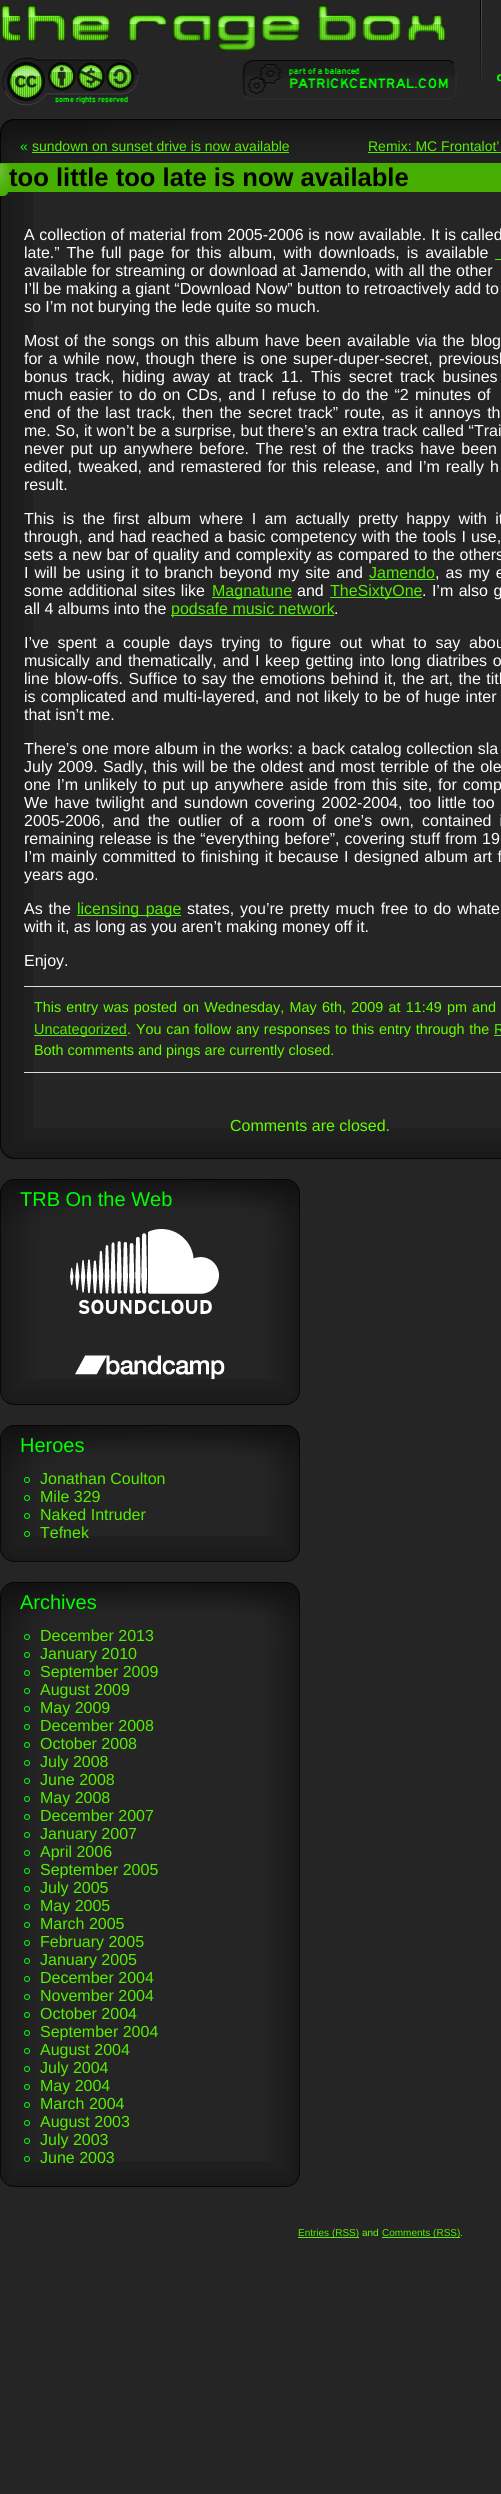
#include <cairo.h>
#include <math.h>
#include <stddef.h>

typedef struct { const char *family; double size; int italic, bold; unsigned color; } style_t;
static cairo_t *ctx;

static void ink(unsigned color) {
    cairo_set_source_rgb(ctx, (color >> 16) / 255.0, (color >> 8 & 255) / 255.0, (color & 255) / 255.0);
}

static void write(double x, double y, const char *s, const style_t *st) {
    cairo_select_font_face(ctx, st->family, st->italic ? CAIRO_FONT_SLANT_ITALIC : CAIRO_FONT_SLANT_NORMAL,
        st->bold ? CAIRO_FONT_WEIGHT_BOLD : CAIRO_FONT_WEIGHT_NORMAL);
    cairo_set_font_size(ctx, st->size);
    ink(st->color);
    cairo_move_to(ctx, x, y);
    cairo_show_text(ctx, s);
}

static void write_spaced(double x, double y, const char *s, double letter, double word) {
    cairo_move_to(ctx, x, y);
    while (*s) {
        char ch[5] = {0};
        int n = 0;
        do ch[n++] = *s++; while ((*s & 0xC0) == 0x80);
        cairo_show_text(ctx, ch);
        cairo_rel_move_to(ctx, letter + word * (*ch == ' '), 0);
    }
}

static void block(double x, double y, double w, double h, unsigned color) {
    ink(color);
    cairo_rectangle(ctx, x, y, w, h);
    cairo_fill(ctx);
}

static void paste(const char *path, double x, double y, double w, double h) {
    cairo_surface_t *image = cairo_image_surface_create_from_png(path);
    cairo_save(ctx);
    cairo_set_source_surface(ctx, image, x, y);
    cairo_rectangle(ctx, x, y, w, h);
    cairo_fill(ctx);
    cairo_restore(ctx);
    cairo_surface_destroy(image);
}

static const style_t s1 = {"Liberation Sans", 14, 0, 0, 0x00ff00};
static const style_t s2 = {"Liberation Sans", 14, 0, 0, 0x55ee00};
static const style_t s3 = {"Liberation Sans", 25.6, 0, 1, 0x000000};
static const style_t s4 = {"Liberation Sans", 16, 0, 0, 0xffffff};
static const style_t s5 = {"Liberation Sans", 16, 0, 0, 0x55ee00};
static const style_t s6 = {"Liberation Sans", 14.4, 0, 0, 0x55ee00};
static const style_t s7 = {"Liberation Sans", 14.4, 0, 0, 0x66ff00};
static const style_t s8 = {"Liberation Sans", 16, 0, 0, 0x66ff00};
static const style_t s9 = {"Liberation Sans", 20, 0, 0, 0x00ff00};
static const style_t s10 = {"Liberation Sans", 10, 0, 0, 0x55ee00};
static const style_t s11 = {"Liberation Sans", 10, 0, 0, 0x66ff00};

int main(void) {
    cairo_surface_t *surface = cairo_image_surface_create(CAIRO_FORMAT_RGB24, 501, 2494);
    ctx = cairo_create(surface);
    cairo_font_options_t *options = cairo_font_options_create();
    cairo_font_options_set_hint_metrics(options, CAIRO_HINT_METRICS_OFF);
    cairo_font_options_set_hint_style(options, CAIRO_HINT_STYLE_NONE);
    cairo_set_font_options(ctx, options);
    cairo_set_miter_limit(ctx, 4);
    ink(0x252525);
    cairo_paint(ctx);
    paste("pic1.png", 1, 5, 456, 101);
    paste("pic2.png", 480, 0, 2, 85);
    paste("pic3.png", 497, 74, 4, 8);
    paste("pic4.png", 0, 119, 501, 44);
    write(20, 151, "«", &s1);
    write(32, 151, "sundown on sunset drive is now available", &s2);
    block(32, 152, 257, 1, 0x55ee00);
    write(368, 151, "Remix: MC Frontalot’", &s2);
    block(368, 152, 133, 1, 0x55ee00);
    paste("pic5.png", 0, 192, 33, 936);
    block(4, 163, 497, 29, 0x46ae00);
    paste("pic6.png", 0, 163, 12, 33);
    block(9, 164, 3, 25, 0x46ae00);
    write(9, 186, "too little too late is now available", &s3);
    cairo_select_font_face(ctx, "Liberation Sans", CAIRO_FONT_SLANT_NORMAL, CAIRO_FONT_WEIGHT_NORMAL);
    cairo_set_font_size(ctx, 16);
    ink(0xffffff);
    write_spaced(24, 240, "A collection of material from 2005-2006 is now available. It is called", 0, 0.25);
    write_spaced(24, 258, "late.” The full page for this album, with downloads, is available", 0, 2.5);
    block(495, 259, 6, 1, 0x55ee00);
    ink(0xffffff);
    write_spaced(24, 276, "available for streaming or download at Jamendo, with all the other", 0, 0.25);
    write(24, 294, "I’ll be making a giant “Download Now” button to retroactively add to", &s4);
    write(24, 312, "so I’m not burying the lede quite so much.", &s4);
    write_spaced(24, 346, "Most of the songs on this album have been available via the blog", 0, 1.5);
    write_spaced(24, 364, "for a while now, though there is one super-duper-secret, previousl", 0, 1.5);
    write_spaced(24, 382, "bonus track, hiding away at track 11. This secret track busines", 0, 3.25);
    write_spaced(24, 400, "much easier to do on CDs, and I refuse to do the “2 minutes of", 0, 1.75);
    write_spaced(24, 418, "end of the last track, then the secret track” route, as it annoys th", 0, 1.9);
    write_spaced(24, 436, "me. So, it won’t be a surprise, but there’s an extra track called “Trai", 0, 0.2);
    write_spaced(24, 454, "never put up anywhere before. The rest of the tracks have been", 0, 2);
    write_spaced(24, 472, "edited, tweaked, and remastered for this release, and I’m really h", 0, 1.5);
    write(24, 490, "result.", &s4);
    write_spaced(24, 524, "This is the first album where I am actually pretty happy with it", 0, 4);
    write_spaced(24, 542, "through, and had reached a basic competency with the tools I use,", 0, 0.6);
    write_spaced(24, 560, "sets a new bar of quality and complexity as compared to the others", 0, 0.5);
    write_spaced(24, 578, "I will be using it to branch beyond my site and", 0, 1.6);
    write(369, 578, "Jamendo", &s5);
    block(369, 579, 66, 1, 0x55ee00);
    ink(0xffffff);
    write_spaced(435, 578, ", as my e", 0, 1.6);
    write_spaced(24, 596, "some additional sites like", 0, 1);
    block(212, 597, 80, 1, 0x55ee00);
    write(212, 596, "Magnatune", &s5);
    write(297, 596, "and", &s4);
    block(330, 597, 92, 1, 0x55ee00);
    write(330, 596, "TheSixtyOne", &s5);
    ink(0xffffff);
    write_spaced(422, 596, ". I’m also g", 0, 1);
    write(24, 614, "all 4 albums into the", &s4);
    block(171, 615, 163, 1, 0x55ee00);
    write(171, 614, "podsafe music network", &s5);
    write(334, 614, ".", &s4);
    write_spaced(24, 648, "I’ve spent a couple days trying to figure out what to say abou", 0, 4.25);
    write_spaced(24, 666, "musically and thematically, and I keep getting into long diatribes o", 0, 1.25);
    write_spaced(24, 684, "line blow-offs. Suffice to say the emotions behind it, the art, the titl", 0, 1.1);
    write_spaced(24, 702, "is complicated and multi-layered, and not likely to be of huge inter", 0, 0.75);
    write(24, 720, "that isn’t me.", &s4);
    write_spaced(24, 754, "There’s one more album in the works: a back catalog collection sla", 0, 0.25);
    write_spaced(24, 772, "July 2009. Sadly, this will be the oldest and most terrible of the ole", 0, 0.75);
    write_spaced(24, 790, "one I’m unlikely to put up anywhere aside from this site, for comp", 0, 1.5);
    write_spaced(24, 808, "We have twilight and sundown covering 2002-2004, too little too", 0, 2);
    write_spaced(24, 826, "2005-2006, and the outlier of a room of one’s own, contained i", 0, 3.6);
    write_spaced(24, 844, "remaining release is the “everything before”, covering stuff from 19", 0, 0.5);
    write_spaced(24, 862, "I’m mainly committed to finishing it because I designed album art f", 0, 1);
    write(24, 880, "years ago.", &s4);
    write_spaced(24, 914, "As the", 0, 1.5);
    block(77, 915, 104, 1, 0x55ee00);
    write_spaced(77, 914, "licensing page", 0, 2);
    ink(0xffffff);
    write_spaced(187, 914, "states, you’re pretty much free to do whate", 0, 1.5);
    write(24, 932, "with it, as long as you aren’t making money off it.", &s4);
    write(24, 966, "Enjoy.", &s4);
    block(24, 986, 477, 1, 0xdddddd);
    block(24, 1072, 477, 1, 0xdddddd);
    cairo_set_font_size(ctx, 14.4);
    ink(0x66ff00);
    write_spaced(34, 1012, "This entry was posted", 0, 1);
    write_spaced(183, 1012, "on Wednesday, May 6th, 2009 at 11:49 pm", 0, 1.25);
    write_spaced(472, 1012, "and", 0, 1);
    block(34, 1035, 93, 1, 0x55ee00);
    write(34, 1034, "Uncategorized", &s6);
    write(127, 1034, ".", &s7);
    write_spaced(136, 1034, "You can follow any responses to this entry through the", 0, 0.75);
    ink(0x55ee00);
    write_spaced(494, 1034, "R", 0, 0.75);
    block(494, 1035, 7, 1, 0x55ee00);
    write(34, 1055, "Both comments and pings are currently closed.", &s7);
    paste("pic7.png", 0, 1128, 501, 31);
    write(230, 1131, "Comments are closed.", &s8);
    paste("pic8.png", 0, 1179, 300, 65);
    write(20, 1206, "TRB On the Web", &s9);
    paste("pic9.png", 0, 1244, 300, 76);
    paste("pic10.png", 70, 1229, 149, 85);
    paste("pic11.png", 0, 1320, 300, 59);
    paste("pic13.png", 0, 1379, 300, 26);
    paste("pic12.png", 75, 1355, 150, 25);
    paste("pic8.png", 0, 1425, 300, 65);
    write(20, 1452, "Heroes", &s9);
    paste("pic14.png", 0, 1490, 300, 46);
    cairo_arc(ctx, 27, 1480, 2.5, 0, 2 * M_PI);
    cairo_set_line_width(ctx, 1);
    cairo_stroke(ctx);
    write(40, 1484, "Jonathan Coulton", &s5);
    cairo_new_path(ctx);
    cairo_arc(ctx, 27, 1498, 2.5, 0, 2 * M_PI);
    ink(0x00ff00);
    cairo_stroke(ctx);
    write(40, 1502, "Mile 329", &s5);
    cairo_new_path(ctx);
    cairo_arc(ctx, 27, 1516, 2.5, 0, 2 * M_PI);
    ink(0x00ff00);
    cairo_stroke(ctx);
    write(40, 1520, "Naked Intruder", &s5);
    paste("pic13.png", 0, 1536, 300, 26);
    cairo_arc(ctx, 27, 1534, 2.5, 0, 2 * M_PI);
    ink(0x00ff00);
    cairo_stroke(ctx);
    write(40, 1538, "Tefnek", &s5);
    paste("pic8.png", 0, 1582, 300, 65);
    write(20, 1609, "Archives", &s9);
    paste("pic15.png", 0, 1647, 300, 514);
    cairo_arc(ctx, 27, 1637, 2.5, 0, 2 * M_PI);
    cairo_stroke(ctx);
    write(40, 1641, "December 2013", &s5);
    cairo_new_path(ctx);
    cairo_arc(ctx, 27, 1655, 2.5, 0, 2 * M_PI);
    ink(0x00ff00);
    cairo_stroke(ctx);
    write(40, 1659, "January 2010", &s5);
    cairo_new_path(ctx);
    cairo_arc(ctx, 27, 1673, 2.5, 0, 2 * M_PI);
    ink(0x00ff00);
    cairo_stroke(ctx);
    write(40, 1677, "September 2009", &s5);
    cairo_new_path(ctx);
    cairo_arc(ctx, 27, 1691, 2.5, 0, 2 * M_PI);
    ink(0x00ff00);
    cairo_stroke(ctx);
    write(40, 1695, "August 2009", &s5);
    cairo_new_path(ctx);
    cairo_arc(ctx, 27, 1709, 2.5, 0, 2 * M_PI);
    ink(0x00ff00);
    cairo_stroke(ctx);
    write(40, 1713, "May 2009", &s5);
    cairo_new_path(ctx);
    cairo_arc(ctx, 27, 1727, 2.5, 0, 2 * M_PI);
    ink(0x00ff00);
    cairo_stroke(ctx);
    write(40, 1731, "December 2008", &s5);
    cairo_new_path(ctx);
    cairo_arc(ctx, 27, 1745, 2.5, 0, 2 * M_PI);
    ink(0x00ff00);
    cairo_stroke(ctx);
    write(40, 1749, "October 2008", &s5);
    cairo_new_path(ctx);
    cairo_arc(ctx, 27, 1763, 2.5, 0, 2 * M_PI);
    ink(0x00ff00);
    cairo_stroke(ctx);
    write(40, 1767, "July 2008", &s5);
    cairo_new_path(ctx);
    cairo_arc(ctx, 27, 1781, 2.5, 0, 2 * M_PI);
    ink(0x00ff00);
    cairo_stroke(ctx);
    write(40, 1785, "June 2008", &s5);
    cairo_new_path(ctx);
    cairo_arc(ctx, 27, 1799, 2.5, 0, 2 * M_PI);
    ink(0x00ff00);
    cairo_stroke(ctx);
    write(40, 1803, "May 2008", &s5);
    cairo_new_path(ctx);
    cairo_arc(ctx, 27, 1817, 2.5, 0, 2 * M_PI);
    ink(0x00ff00);
    cairo_stroke(ctx);
    write(40, 1821, "December 2007", &s5);
    cairo_new_path(ctx);
    cairo_arc(ctx, 27, 1835, 2.5, 0, 2 * M_PI);
    ink(0x00ff00);
    cairo_stroke(ctx);
    write(40, 1839, "January 2007", &s5);
    cairo_new_path(ctx);
    cairo_arc(ctx, 27, 1853, 2.5, 0, 2 * M_PI);
    ink(0x00ff00);
    cairo_stroke(ctx);
    write(40, 1857, "April 2006", &s5);
    cairo_new_path(ctx);
    cairo_arc(ctx, 27, 1871, 2.5, 0, 2 * M_PI);
    ink(0x00ff00);
    cairo_stroke(ctx);
    write(40, 1875, "September 2005", &s5);
    cairo_new_path(ctx);
    cairo_arc(ctx, 27, 1889, 2.5, 0, 2 * M_PI);
    ink(0x00ff00);
    cairo_stroke(ctx);
    write(40, 1893, "July 2005", &s5);
    cairo_new_path(ctx);
    cairo_arc(ctx, 27, 1907, 2.5, 0, 2 * M_PI);
    ink(0x00ff00);
    cairo_stroke(ctx);
    write(40, 1911, "May 2005", &s5);
    cairo_new_path(ctx);
    cairo_arc(ctx, 27, 1925, 2.5, 0, 2 * M_PI);
    ink(0x00ff00);
    cairo_stroke(ctx);
    write(40, 1929, "March 2005", &s5);
    cairo_new_path(ctx);
    cairo_arc(ctx, 27, 1943, 2.5, 0, 2 * M_PI);
    ink(0x00ff00);
    cairo_stroke(ctx);
    write(40, 1947, "February 2005", &s5);
    cairo_new_path(ctx);
    cairo_arc(ctx, 27, 1961, 2.5, 0, 2 * M_PI);
    ink(0x00ff00);
    cairo_stroke(ctx);
    write(40, 1965, "January 2005", &s5);
    cairo_new_path(ctx);
    cairo_arc(ctx, 27, 1979, 2.5, 0, 2 * M_PI);
    ink(0x00ff00);
    cairo_stroke(ctx);
    write(40, 1983, "December 2004", &s5);
    cairo_new_path(ctx);
    cairo_arc(ctx, 27, 1997, 2.5, 0, 2 * M_PI);
    ink(0x00ff00);
    cairo_stroke(ctx);
    write(40, 2001, "November 2004", &s5);
    cairo_new_path(ctx);
    cairo_arc(ctx, 27, 2015, 2.5, 0, 2 * M_PI);
    ink(0x00ff00);
    cairo_stroke(ctx);
    write(40, 2019, "October 2004", &s5);
    cairo_new_path(ctx);
    cairo_arc(ctx, 27, 2033, 2.5, 0, 2 * M_PI);
    ink(0x00ff00);
    cairo_stroke(ctx);
    write(40, 2037, "September 2004", &s5);
    cairo_new_path(ctx);
    cairo_arc(ctx, 27, 2051, 2.5, 0, 2 * M_PI);
    ink(0x00ff00);
    cairo_stroke(ctx);
    write(40, 2055, "August 2004", &s5);
    cairo_new_path(ctx);
    cairo_arc(ctx, 27, 2069, 2.5, 0, 2 * M_PI);
    ink(0x00ff00);
    cairo_stroke(ctx);
    write(40, 2073, "July 2004", &s5);
    cairo_new_path(ctx);
    cairo_arc(ctx, 27, 2087, 2.5, 0, 2 * M_PI);
    ink(0x00ff00);
    cairo_stroke(ctx);
    write(40, 2091, "May 2004", &s5);
    cairo_new_path(ctx);
    cairo_arc(ctx, 27, 2105, 2.5, 0, 2 * M_PI);
    ink(0x00ff00);
    cairo_stroke(ctx);
    write(40, 2109, "March 2004", &s5);
    cairo_new_path(ctx);
    cairo_arc(ctx, 27, 2123, 2.5, 0, 2 * M_PI);
    ink(0x00ff00);
    cairo_stroke(ctx);
    write(40, 2127, "August 2003", &s5);
    cairo_new_path(ctx);
    cairo_arc(ctx, 27, 2141, 2.5, 0, 2 * M_PI);
    ink(0x00ff00);
    cairo_stroke(ctx);
    write(40, 2145, "July 2003", &s5);
    paste("pic13.png", 0, 2161, 300, 26);
    cairo_arc(ctx, 27, 2159, 2.5, 0, 2 * M_PI);
    ink(0x00ff00);
    cairo_stroke(ctx);
    write(40, 2163, "June 2003", &s5);
    block(298, 2237, 61, 1, 0x55ee00);
    write(298, 2236, "Entries (RSS)", &s10);
    write(362, 2236, "and", &s11);
    block(382, 2237, 78, 1, 0x55ee00);
    write(382, 2236, "Comments (RSS)", &s10);
    write(460, 2236, ".", &s11);
    cairo_surface_write_to_png(surface, "screenshot.png");
    cairo_font_options_destroy(options);
    cairo_destroy(ctx);
    cairo_surface_destroy(surface);
    return 0;
}
